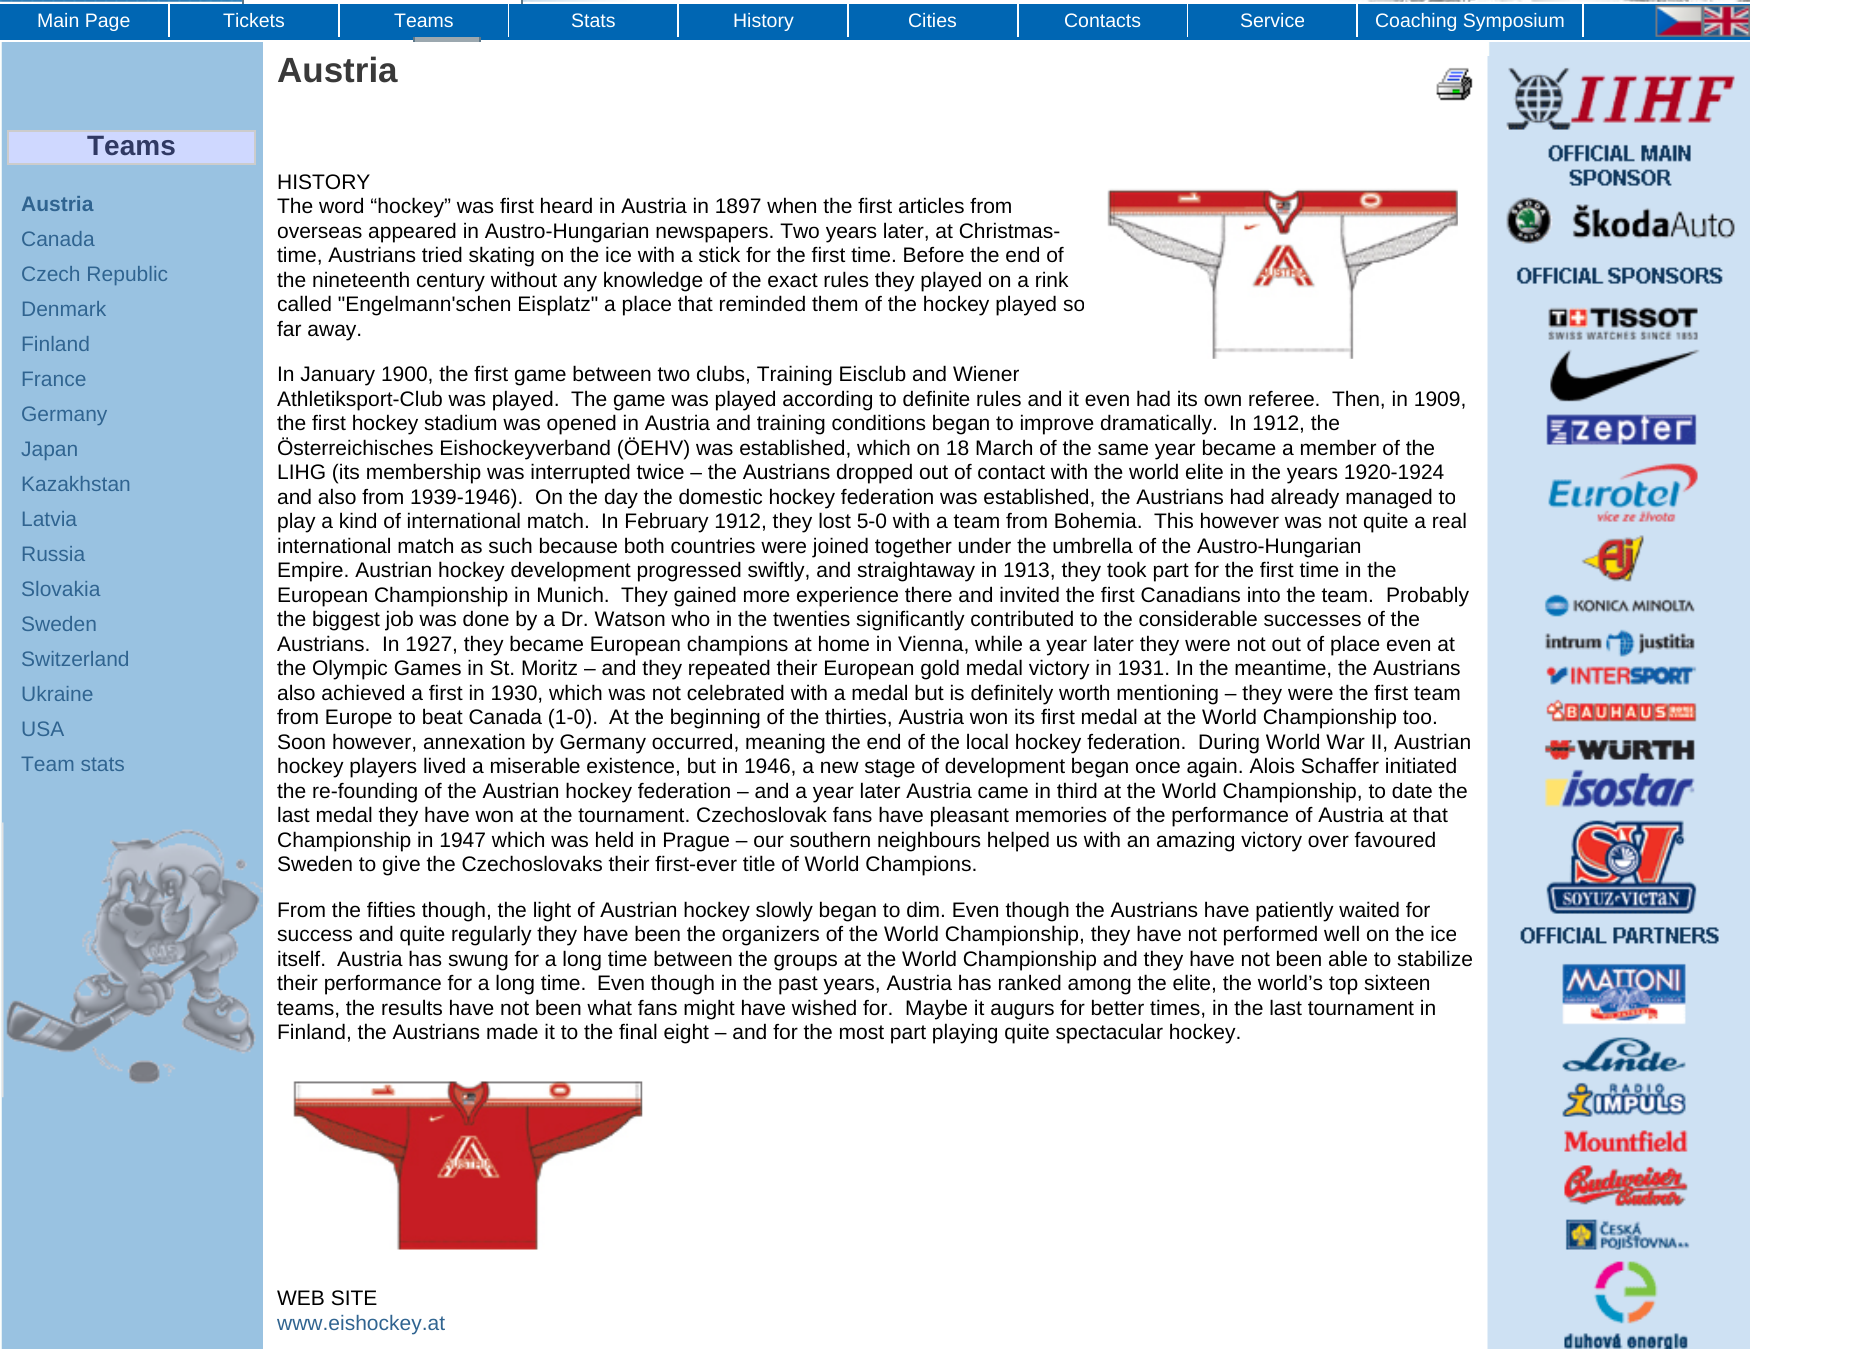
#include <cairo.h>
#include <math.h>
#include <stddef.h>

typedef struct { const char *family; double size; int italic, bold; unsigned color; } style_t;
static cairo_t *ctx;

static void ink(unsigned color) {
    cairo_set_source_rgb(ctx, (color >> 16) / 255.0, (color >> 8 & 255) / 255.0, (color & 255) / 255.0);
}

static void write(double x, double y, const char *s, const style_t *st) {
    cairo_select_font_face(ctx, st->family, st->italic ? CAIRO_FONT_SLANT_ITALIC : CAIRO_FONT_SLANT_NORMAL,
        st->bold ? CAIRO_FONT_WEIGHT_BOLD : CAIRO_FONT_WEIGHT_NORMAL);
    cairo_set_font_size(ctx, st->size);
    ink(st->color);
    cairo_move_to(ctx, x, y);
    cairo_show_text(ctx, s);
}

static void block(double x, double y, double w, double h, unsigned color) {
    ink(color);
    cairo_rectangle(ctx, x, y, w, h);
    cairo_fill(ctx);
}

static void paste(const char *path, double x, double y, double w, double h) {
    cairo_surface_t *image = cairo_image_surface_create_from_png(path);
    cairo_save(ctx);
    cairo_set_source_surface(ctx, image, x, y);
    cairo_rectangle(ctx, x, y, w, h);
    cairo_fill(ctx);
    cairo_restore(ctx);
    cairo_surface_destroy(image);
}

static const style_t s1 = {"Liberation Sans", 19.5, 0, 0, 0xffffff};
static const style_t s2 = {"Liberation Sans", 28, 0, 1, 0x303963};
static const style_t s3 = {"Liberation Sans", 21, 0, 1, 0x306490};
static const style_t s4 = {"Liberation Sans", 21, 0, 0, 0x306490};
static const style_t s5 = {"Liberation Sans", 35, 0, 1, 0x393939};
static const style_t s6 = {"Liberation Sans", 21, 0, 0, 0x000000};

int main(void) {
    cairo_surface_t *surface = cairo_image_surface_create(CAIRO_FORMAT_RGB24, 1859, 1349);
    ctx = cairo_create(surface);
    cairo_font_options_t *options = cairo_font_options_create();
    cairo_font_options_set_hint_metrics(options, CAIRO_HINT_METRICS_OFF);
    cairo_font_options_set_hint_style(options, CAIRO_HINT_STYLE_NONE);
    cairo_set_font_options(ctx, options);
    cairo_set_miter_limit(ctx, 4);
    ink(0xffffff);
    cairo_paint(ctx);
    paste("pic1.png", 0, 0, 1750, 2);
    block(244, 0, 277, 2, 0xffffff);
    block(0, 4, 1750, 36, 0x0066b3);
    cairo_rectangle(ctx, 243, -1, 279, 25);
    ink(0x5e7889);
    cairo_stroke(ctx);
    block(415, 37, 64, 5, 0x9ca8af);
    cairo_rectangle(ctx, 414, 26, 66, 22);
    ink(0x5e7889);
    cairo_stroke(ctx);
    block(168, 4, 2, 33, 0xffffff);
    write(37, 27, "Main Page", &s1);
    block(338, 4, 2, 33, 0xffffff);
    block(242, 4, 96, 21, 0x0066b3);
    write(223, 27, "Tickets", &s1);
    block(508, 4, 1, 33, 0xffffff);
    block(340, 23, 168, 14, 0x0066b3);
    write(394, 27, "Teams", &s1);
    block(677, 4, 2, 33, 0xffffff);
    block(509, 4, 14, 21, 0x0066b3);
    write(571, 27, "Stats", &s1);
    block(847, 4, 2, 33, 0xffffff);
    write(733, 27, "History", &s1);
    block(1017, 4, 2, 33, 0xffffff);
    write(908, 27, "Cities", &s1);
    block(1187, 4, 1, 33, 0xffffff);
    write(1064, 27, "Contacts", &s1);
    block(1356, 4, 2, 33, 0xffffff);
    write(1240, 27, "Service", &s1);
    block(1582, 4, 2, 33, 0xffffff);
    write(1375, 27, "Coaching Symposium", &s1);
    paste("pic2.png", 1655, 5, 48, 32);
    paste("pic3.png", 1702, 5, 48, 32);
    block(1, 42, 262, 1307, 0x99c2e1);
    paste("pic4.png", 0, 42, 2, 1307);
    ink(0xcfd8ff);
    cairo_rectangle(ctx, 8, 131, 247, 33);
    cairo_fill_preserve(ctx);
    ink(0xcccccc);
    cairo_stroke(ctx);
    write(87, 155, "Teams", &s2);
    write(21, 211, "Austria", &s3);
    write(21, 246, "Canada", &s4);
    write(21, 281, "Czech Republic", &s4);
    write(21, 316, "Denmark", &s4);
    write(21, 351, "Finland", &s4);
    write(21, 386, "France", &s4);
    write(21, 421, "Germany", &s4);
    write(21, 456, "Japan", &s4);
    write(21, 491, "Kazakhstan", &s4);
    write(21, 526, "Latvia", &s4);
    write(21, 561, "Russia", &s4);
    write(21, 596, "Slovakia", &s4);
    write(21, 631, "Sweden", &s4);
    write(21, 666, "Switzerland", &s4);
    write(21, 701, "Ukraine", &s4);
    write(21, 736, "USA", &s4);
    write(21, 771, "Team stats", &s4);
    paste("pic5.png", 1, 822, 262, 276);
    block(413, 42, 68, 7, 0xffffff);
    write(277, 82, "Austria", &s5);
    paste("pic6.png", 1436, 67, 37, 34);
    write(277, 189, "HISTORY", &s6);
    paste("pic7.png", 1107, 188, 351, 171);
    write(277, 213, "The word “hockey” was first heard in Austria in 1897 when the first articles from", &s6);
    write(277, 238, "overseas appeared in Austro-Hungarian newspapers. Two years later, at Christmas-", &s6);
    write(277, 262, "time, Austrians tried skating on the ice with a stick for the first time. Before the end of", &s6);
    write(277, 287, "the nineteenth century without any knowledge of the exact rules they played on a rink", &s6);
    write(277, 311, "called \"Engelmann'schen Eisplatz\" a place that reminded them of the hockey played so", &s6);
    write(277, 336, "far away.", &s6);
    write(277, 381, "In January 1900, the first game between two clubs, Training Eisclub and Wiener", &s6);
    write(277, 406, "Athletiksport-Club was played.", &s6);
    write(571, 406, "The game was played according to definite rules and it even had its own referee.", &s6);
    write(1332, 406, "Then, in 1909,", &s6);
    write(277, 430, "the first hockey stadium was opened in Austria and training conditions began to improve dramatically.", &s6);
    write(1229, 430, "In 1912, the", &s6);
    write(277, 455, "Österreichisches Eishockeyverband (ÖEHV) was established, which on 18 March of the same year became a member of the", &s6);
    write(277, 479, "LIHG (its membership was interrupted twice – the Austrians dropped out of contact with the world elite in the years 1920-1924", &s6);
    write(277, 504, "and also from 1939-1946).", &s6);
    write(535, 504, "On the day the domestic hockey federation was established, the Austrians had already managed to", &s6);
    write(277, 528, "play a kind of international match.", &s6);
    write(601, 528, "In February 1912, they lost 5-0 with a team from Bohemia.", &s6);
    write(1154, 528, "This however was not quite a real", &s6);
    write(277, 553, "international match as such because both countries were joined together under the umbrella of the Austro-Hungarian", &s6);
    write(277, 577, "Empire. Austrian hockey development progressed swiftly, and straightaway in 1913, they took part for the first time in the", &s6);
    write(277, 602, "European Championship in Munich.", &s6);
    write(621, 602, "They gained more experience there and invited the first Canadians into the team.", &s6);
    write(1386, 602, "Probably", &s6);
    write(277, 626, "the biggest job was done by a Dr. Watson who in the twenties significantly contributed to the considerable successes of the", &s6);
    write(277, 651, "Austrians.", &s6);
    write(382, 651, "In 1927, they became European champions at home in Vienna, while a year later they were not out of place even at", &s6);
    write(277, 675, "the Olympic Games in St. Moritz – and they repeated their European gold medal victory in 1931. In the meantime, the Austrians", &s6);
    write(277, 700, "also achieved a first in 1930, which was not celebrated with a medal but is definitely worth mentioning – they were the first team", &s6);
    write(277, 724, "from Europe to beat Canada (1-0).", &s6);
    write(609, 724, "At the beginning of the thirties, Austria won its first medal at the World Championship too.", &s6);
    write(277, 749, "Soon however, annexation by Germany occurred, meaning the end of the local hockey federation.", &s6);
    write(1198, 749, "During World War II, Austrian", &s6);
    write(277, 773, "hockey players lived a miserable existence, but in 1946, a new stage of development began once again. Alois Schaffer initiated", &s6);
    write(277, 798, "the re-founding of the Austrian hockey federation – and a year later Austria came in third at the World Championship, to date the", &s6);
    write(277, 822, "last medal they have won at the tournament. Czechoslovak fans have pleasant memories of the performance of Austria at that", &s6);
    write(277, 847, "Championship in 1947 which was held in Prague – our southern neighbours helped us with an amazing victory over favoured", &s6);
    write(277, 871, "Sweden to give the Czechoslovaks their first-ever title of World Champions.", &s6);
    write(277, 917, "From the fifties though, the light of Austrian hockey slowly began to dim. Even though the Austrians have patiently waited for", &s6);
    write(277, 941, "success and quite regularly they have been the organizers of the World Championship, they have not performed well on the ice", &s6);
    write(277, 966, "itself.", &s6);
    write(337, 966, "Austria has swung for a long time between the groups at the World Championship and they have not been able to stabilize", &s6);
    write(277, 990, "their performance for a long time.", &s6);
    write(597, 990, "Even though in the past years, Austria has ranked among the elite, the world’s top sixteen", &s6);
    write(277, 1015, "teams, the results have not been what fans might have wished for.", &s6);
    write(905, 1015, "Maybe it augurs for better times, in the last tournament in", &s6);
    write(277, 1039, "Finland, the Austrians made it to the final eight – and for the most part playing quite spectacular hockey.", &s6);
    paste("pic8.png", 293, 1081, 350, 169);
    write(277, 1305, "WEB SITE", &s6);
    write(277, 1330, "www.eishockey.at", &s4);
    block(1489, 42, 261, 1307, 0xcee1f3);
    paste("pic9.png", 1488, 42, 2, 14);
    paste("pic10.png", 1487, 56, 248, 1293);
    cairo_surface_write_to_png(surface, "screenshot.png");
    cairo_font_options_destroy(options);
    cairo_destroy(ctx);
    cairo_surface_destroy(surface);
    return 0;
}
